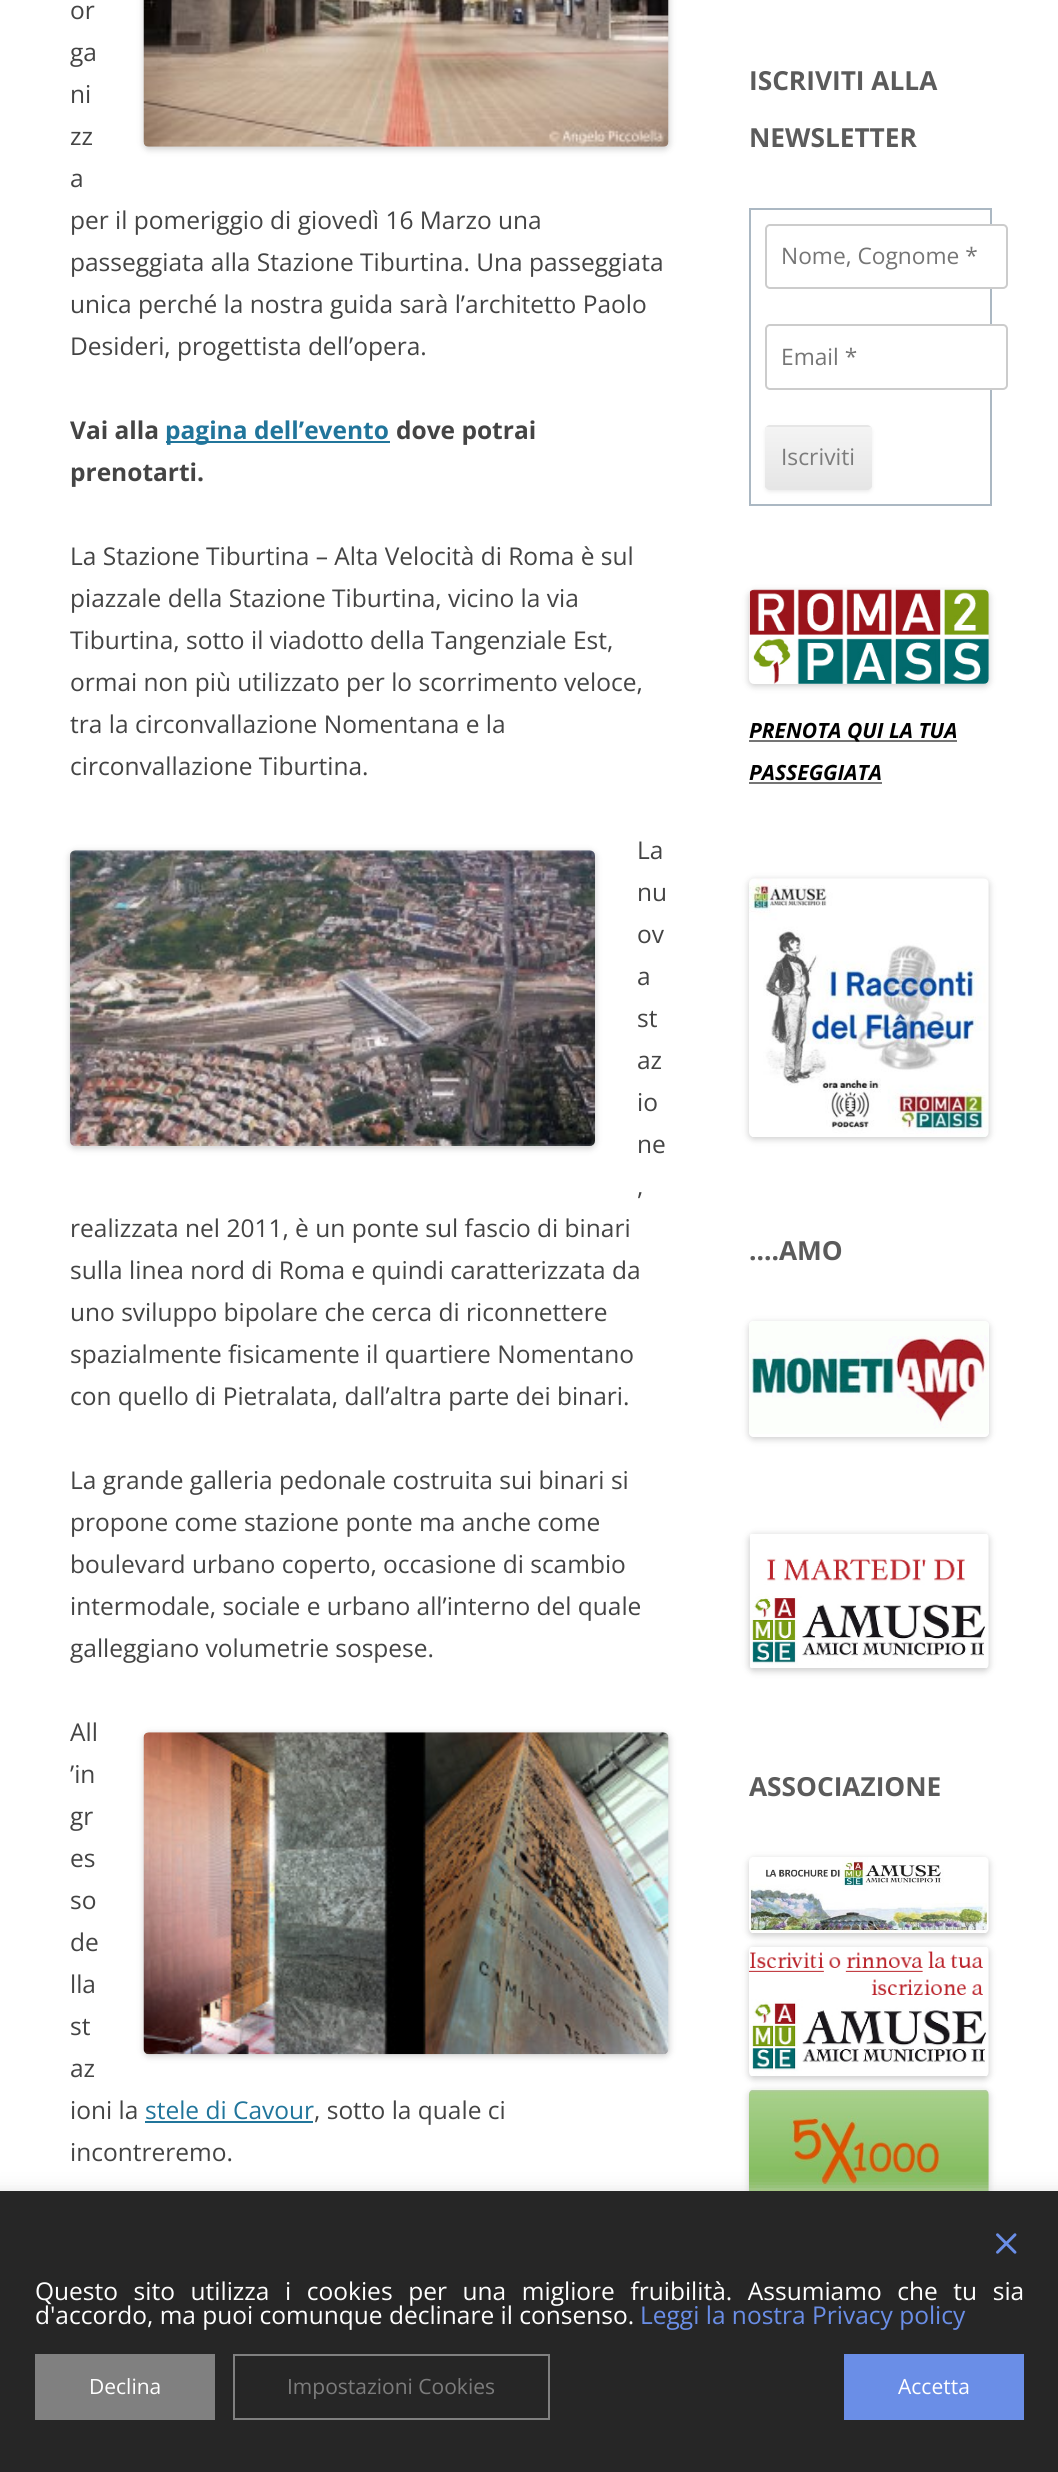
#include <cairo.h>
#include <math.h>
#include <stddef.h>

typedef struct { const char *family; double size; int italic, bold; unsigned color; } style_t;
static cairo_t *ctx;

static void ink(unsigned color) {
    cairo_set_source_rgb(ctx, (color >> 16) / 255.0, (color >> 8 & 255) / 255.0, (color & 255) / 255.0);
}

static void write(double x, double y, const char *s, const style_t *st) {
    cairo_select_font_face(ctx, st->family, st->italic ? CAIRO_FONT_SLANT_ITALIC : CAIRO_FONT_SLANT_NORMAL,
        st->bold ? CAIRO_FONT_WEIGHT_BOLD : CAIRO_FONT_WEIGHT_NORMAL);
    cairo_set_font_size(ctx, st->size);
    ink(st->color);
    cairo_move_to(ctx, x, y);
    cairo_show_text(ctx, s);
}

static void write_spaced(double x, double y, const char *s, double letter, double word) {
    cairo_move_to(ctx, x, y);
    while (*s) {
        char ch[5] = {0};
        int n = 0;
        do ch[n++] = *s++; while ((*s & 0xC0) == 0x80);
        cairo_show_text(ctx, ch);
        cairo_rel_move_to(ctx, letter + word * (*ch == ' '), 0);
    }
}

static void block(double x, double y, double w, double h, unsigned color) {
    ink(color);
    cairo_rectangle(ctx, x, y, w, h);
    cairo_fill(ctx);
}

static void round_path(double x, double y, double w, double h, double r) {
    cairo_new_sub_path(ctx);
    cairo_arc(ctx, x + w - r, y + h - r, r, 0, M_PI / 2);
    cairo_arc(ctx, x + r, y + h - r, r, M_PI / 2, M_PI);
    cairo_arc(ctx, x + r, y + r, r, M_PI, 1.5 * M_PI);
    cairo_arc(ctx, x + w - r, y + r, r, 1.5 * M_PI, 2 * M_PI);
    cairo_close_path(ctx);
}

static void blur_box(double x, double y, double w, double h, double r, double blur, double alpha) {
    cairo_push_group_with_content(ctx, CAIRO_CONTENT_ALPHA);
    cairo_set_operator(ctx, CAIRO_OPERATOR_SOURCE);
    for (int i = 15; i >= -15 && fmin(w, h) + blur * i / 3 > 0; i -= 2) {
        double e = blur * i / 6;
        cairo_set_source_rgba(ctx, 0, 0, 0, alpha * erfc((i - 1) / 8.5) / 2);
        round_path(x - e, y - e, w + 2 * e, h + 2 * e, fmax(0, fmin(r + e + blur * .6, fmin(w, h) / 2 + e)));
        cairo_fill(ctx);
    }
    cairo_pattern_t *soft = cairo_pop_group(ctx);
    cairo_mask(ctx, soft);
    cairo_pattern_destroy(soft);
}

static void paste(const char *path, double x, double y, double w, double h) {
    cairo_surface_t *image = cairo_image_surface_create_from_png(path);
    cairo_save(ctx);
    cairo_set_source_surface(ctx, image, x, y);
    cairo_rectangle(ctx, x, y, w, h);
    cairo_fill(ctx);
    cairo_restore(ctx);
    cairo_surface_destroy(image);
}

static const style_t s1 = {"Open Sans", 24.5, 0, 0, 0x444444};
static const style_t s2 = {"Open Sans", 24.5, 0, 1, 0x444444};
static const style_t s3 = {"Open Sans", 24.5, 0, 1, 0x21759b};
static const style_t s4 = {"Open Sans", 24.5, 0, 0, 0x21759b};
static const style_t s5 = {"Open Sans", 26.25, 0, 1, 0x5b5b5b};
static const style_t s6 = {"Open Sans", 22.75, 0, 0, 0x757575};
static const style_t s7 = {"Open Sans", 22.75, 0, 0, 0x7c7c7c};
static const style_t s8 = {"Open Sans", 21, 1, 1, 0x000000};
static const style_t s9 = {"Open Sans", 24.5, 0, 0, 0xffffff};
static const style_t s10 = {"Open Sans", 24.5, 0, 0, 0x6a8ee7};
static const style_t s11 = {"Open Sans", 21, 0, 0, 0xffffff};
static const style_t s12 = {"Open Sans", 21, 0, 0, 0x7c7c7c};

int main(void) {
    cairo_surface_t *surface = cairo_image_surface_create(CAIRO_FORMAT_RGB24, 1058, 2472);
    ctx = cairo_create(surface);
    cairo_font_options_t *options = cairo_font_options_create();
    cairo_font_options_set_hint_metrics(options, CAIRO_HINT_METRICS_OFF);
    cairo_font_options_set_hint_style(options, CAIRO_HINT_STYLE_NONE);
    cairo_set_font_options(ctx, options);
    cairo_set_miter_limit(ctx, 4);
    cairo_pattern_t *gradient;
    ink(0xffffff);
    cairo_paint(ctx);
    write(70, 19, "or", &s1);
    ink(0x000000);
    blur_box(144, -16, 525, 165, 5, 3.5, 0.2);
    paste("pic1.png", 143, 0, 526, 147);
    write(70, 61, "ga", &s1);
    write(70, 103, "ni", &s1);
    write(70, 145, "zz", &s1);
    write(70, 187, "a", &s1);
    write(70, 229, "per il pomeriggio di giovedì 16 Marzo una", &s1);
    write(70, 271, "passeggiata alla Stazione Tiburtina. Una passeggiata", &s1);
    write(70, 313, "unica perché la nostra guida sarà l’architetto Paolo", &s1);
    write(70, 355, "Desideri, progettista dell’opera.", &s1);
    write(70, 439, "Vai alla", &s2);
    block(166, 441, 224, 2, 0x21759b);
    write(165, 439, "pagina dell’evento", &s3);
    write(396, 439, "dove potrai", &s2);
    write(70, 481, "prenotarti.", &s2);
    write(70, 565, "La Stazione Tiburtina – Alta Velocità di Roma è sul", &s1);
    write(70, 607, "piazzale della Stazione Tiburtina, vicino la via", &s1);
    write(70, 649, "Tiburtina, sotto il viadotto della Tangenziale Est,", &s1);
    write(70, 691, "ormai non più utilizzato per lo scorrimento veloce,", &s1);
    write(70, 733, "tra la circonvallazione Nomentana e la", &s1);
    write(70, 775, "circonvallazione Tiburtina.", &s1);
    ink(0x000000);
    blur_box(70, 852, 525, 296, 5, 3.5, 0.2);
    paste("pic2.png", 70, 850, 525, 296);
    write(637, 859, "La", &s1);
    write(637, 901, "nu", &s1);
    write(637, 943, "ov", &s1);
    write(637, 985, "a", &s1);
    write(637, 1027, "st", &s1);
    write(637, 1069, "az", &s1);
    write(637, 1111, "io", &s1);
    write(637, 1153, "ne", &s1);
    write(637, 1195, ",", &s1);
    write(70, 1237, "realizzata nel 2011, è un ponte sul fascio di binari", &s1);
    write(70, 1279, "sulla linea nord di Roma e quindi caratterizzata da", &s1);
    write(70, 1321, "uno sviluppo bipolare che cerca di riconnettere", &s1);
    write(70, 1363, "spazialmente fisicamente il quartiere Nomentano", &s1);
    write(70, 1405, "con quello di Pietralata, dall’altra parte dei binari.", &s1);
    write(70, 1489, "La grande galleria pedonale costruita sui binari si", &s1);
    write(70, 1531, "propone come stazione ponte ma anche come", &s1);
    write(70, 1573, "boulevard urbano coperto, occasione di scambio", &s1);
    write(70, 1615, "intermodale, sociale e urbano all’interno del quale", &s1);
    write(70, 1657, "galleggiano volumetrie sospese.", &s1);
    write(70, 1741, "All", &s1);
    ink(0x000000);
    blur_box(144, 1734, 525, 322, 5, 3.5, 0.2);
    paste("pic3.png", 143, 1732, 526, 323);
    write(70, 1783, "’in", &s1);
    write(70, 1825, "gr", &s1);
    write(70, 1867, "es", &s1);
    write(70, 1909, "so", &s1);
    write(70, 1951, "de", &s1);
    write(70, 1993, "lla", &s1);
    write(70, 2035, "st", &s1);
    write(70, 2077, "az", &s1);
    write(70, 2119, "ioni la", &s1);
    write(145, 2119, "stele di Cavour", &s4);
    block(145, 2121, 168, 2, 0x21759b);
    write(314, 2119, ", sotto la quale ci", &s1);
    write(70, 2161, "incontreremo.", &s1);
    write(749, 90, "ISCRIVITI ALLA", &s5);
    write(749, 147, "NEWSLETTER", &s5);
    cairo_rectangle(ctx, 750, 209, 241, 296);
    ink(0xabb8c3);
    cairo_stroke(ctx);
    ink(0xffffff);
    round_path(766, 225, 241, 63, 4);
    cairo_fill_preserve(ctx);
    ink(0xcccccc);
    cairo_stroke(ctx);
    write(781, 264, "Nome, Cognome *", &s6);
    ink(0xffffff);
    round_path(766, 325, 241, 64, 4);
    cairo_fill_preserve(ctx);
    ink(0xcccccc);
    cairo_stroke(ctx);
    write(781, 365, "Email *", &s6);
    ink(0x404040);
    blur_box(765, 427, 107, 65, 5, 2, 0.1);
    ink(0xe6e6e6);
    round_path(765, 425, 107, 65, 5);
    cairo_fill(ctx);
    cairo_save(ctx);
    round_path(765, 425, 107, 65, 5);
    cairo_clip(ctx);
    gradient = cairo_pattern_create_linear(818, 427, 818, 488);
    cairo_pattern_add_color_stop_rgba(gradient, 0, 0.957, 0.957, 0.957, 1);
    cairo_pattern_add_color_stop_rgba(gradient, 1, 0.902, 0.902, 0.902, 1);
    cairo_set_source(ctx, gradient);
    cairo_pattern_destroy(gradient);
    cairo_rectangle(ctx, 765, 427, 107, 61);
    cairo_fill(ctx);
    cairo_restore(ctx);
    write(781, 465, "Iscriviti", &s7);
    ink(0x000000);
    blur_box(749, 592, 240, 94, 5, 3.5, 0.2);
    paste("pic4.png", 749, 589, 240, 95);
    block(749, 740, 208, 2, 0x757575);
    write(749, 738, "PRENOTA QUI LA TUA", &s8);
    write(749, 780, "PASSEGGIATA", &s8);
    block(749, 782, 133, 2, 0x757575);
    ink(0x000000);
    blur_box(749, 880, 240, 259, 5, 3.5, 0.2);
    paste("pic5.png", 749, 878, 240, 259);
    write(749, 1260, "....AMO", &s5);
    cairo_save(ctx);
    cairo_set_fill_rule(ctx, CAIRO_FILL_RULE_EVEN_ODD);
    cairo_new_path(ctx);
    cairo_move_to(ctx, 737, 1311);
    cairo_line_to(ctx, 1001, 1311);
    cairo_line_to(ctx, 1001, 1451);
    cairo_line_to(ctx, 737, 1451);
    cairo_close_path(ctx);
    cairo_move_to(ctx, 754, 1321);
    cairo_line_to(ctx, 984, 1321);
    cairo_curve_to(ctx, 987, 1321, 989, 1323, 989, 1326);
    cairo_line_to(ctx, 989, 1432);
    cairo_curve_to(ctx, 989, 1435, 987, 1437, 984, 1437);
    cairo_line_to(ctx, 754, 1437);
    cairo_curve_to(ctx, 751, 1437, 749, 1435, 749, 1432);
    cairo_line_to(ctx, 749, 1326);
    cairo_curve_to(ctx, 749, 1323, 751, 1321, 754, 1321);
    cairo_close_path(ctx);
    cairo_clip(ctx);
    ink(0x000000);
    blur_box(749, 1323, 240, 116, 5, 3.5, 0.2);
    cairo_restore(ctx);
    paste("pic6.png", 749, 1321, 240, 113);
    ink(0x000000);
    blur_box(749, 1535, 240, 136, 5, 3.5, 0.2);
    paste("pic7.png", 750, 1534, 239, 134);
    write(749, 1796, "ASSOCIAZIONE", &s5);
    ink(0x000000);
    blur_box(749, 1859, 240, 77, 5, 3.5, 0.2);
    paste("pic8.png", 749, 1857, 240, 76);
    blur_box(749, 1948, 240, 131, 5, 3.5, 0.2);
    paste("pic9.png", 749, 1947, 240, 129);
    blur_box(749, 2091, 240, 245, 5, 3.5, 0.2);
    paste("pic10.png", 749, 2089, 240, 102);
    ink(0xdddddd);
    blur_box(-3, 2193, 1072, 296, 0, 9.5, 1);
    block(0, 2191, 1058, 281, 0x262626);
    paste("pic11.png", 996, 2233, 21, 21);
    cairo_select_font_face(ctx, "Open Sans", CAIRO_FONT_SLANT_NORMAL, CAIRO_FONT_WEIGHT_NORMAL);
    cairo_set_font_size(ctx, 24.5);
    ink(0xffffff);
    write_spaced(35, 2300, "Questo sito utilizza i cookies per una migliore fruibilità. Assumiamo che tu sia", 0, 9.25);
    write(35, 2324, "d'accordo, ma puoi comunque declinare il consenso.", &s9);
    write(640, 2324, "Leggi la nostra Privacy policy", &s10);
    block(35, 2354, 180, 66, 0x808080);
    write(89, 2394, "Declina", &s11);
    cairo_rectangle(ctx, 234, 2355, 315, 64);
    ink(0x808080);
    cairo_stroke(ctx);
    write(287, 2394, "Impostazioni Cookies", &s12);
    block(844, 2354, 180, 66, 0x6a8ee7);
    write(898, 2394, "Accetta", &s11);
    cairo_surface_write_to_png(surface, "screenshot.png");
    cairo_font_options_destroy(options);
    cairo_destroy(ctx);
    cairo_surface_destroy(surface);
    return 0;
}
